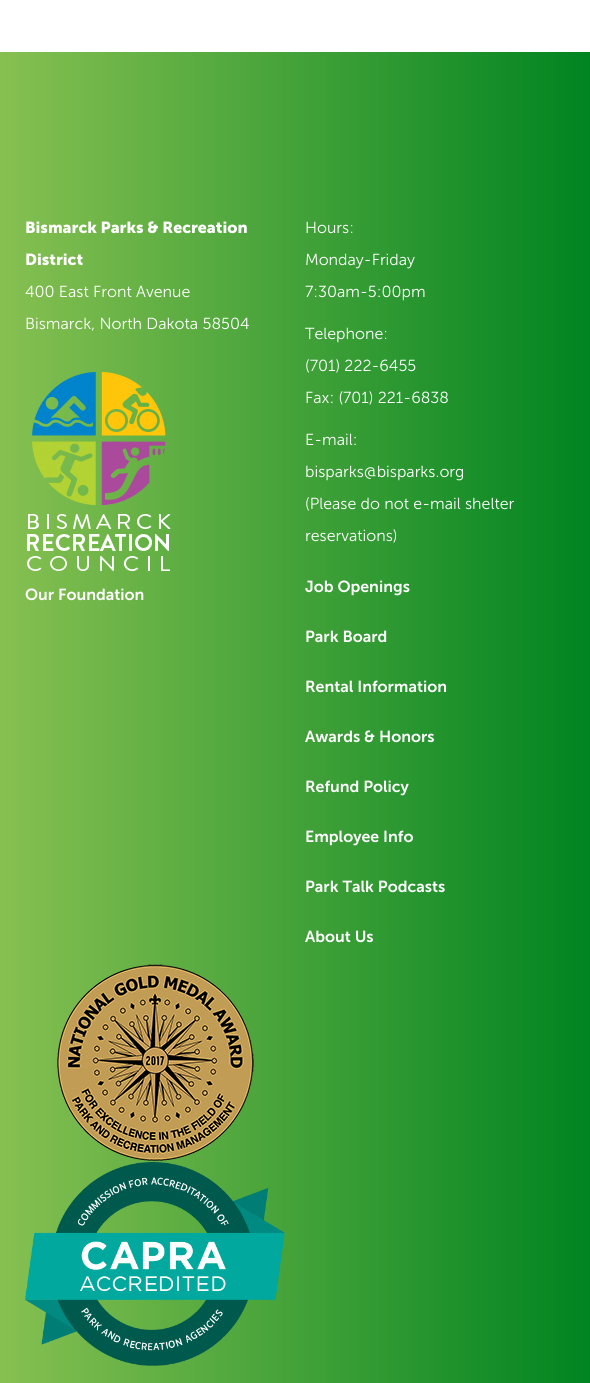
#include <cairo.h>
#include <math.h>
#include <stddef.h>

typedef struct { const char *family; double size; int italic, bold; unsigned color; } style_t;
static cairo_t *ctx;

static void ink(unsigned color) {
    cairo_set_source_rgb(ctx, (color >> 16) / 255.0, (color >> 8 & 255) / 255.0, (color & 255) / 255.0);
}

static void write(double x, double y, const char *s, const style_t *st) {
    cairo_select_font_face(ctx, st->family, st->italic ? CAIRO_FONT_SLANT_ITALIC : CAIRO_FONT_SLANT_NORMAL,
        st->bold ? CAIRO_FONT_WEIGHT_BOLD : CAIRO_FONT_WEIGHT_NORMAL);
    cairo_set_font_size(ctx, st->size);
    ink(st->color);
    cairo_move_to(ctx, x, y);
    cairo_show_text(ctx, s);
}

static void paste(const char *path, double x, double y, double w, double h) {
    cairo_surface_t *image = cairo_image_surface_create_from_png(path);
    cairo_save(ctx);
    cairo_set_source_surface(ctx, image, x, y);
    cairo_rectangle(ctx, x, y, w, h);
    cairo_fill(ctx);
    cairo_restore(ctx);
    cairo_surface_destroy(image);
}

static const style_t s1 = {"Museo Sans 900", 16, 0, 1, 0xffffff};
static const style_t s2 = {"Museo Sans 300 Light", 16, 0, 0, 0xffffff};
static const style_t s3 = {"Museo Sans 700 SemiBold", 16, 0, 0, 0xffffff};

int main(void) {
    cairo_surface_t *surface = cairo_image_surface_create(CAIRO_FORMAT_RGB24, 590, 1383);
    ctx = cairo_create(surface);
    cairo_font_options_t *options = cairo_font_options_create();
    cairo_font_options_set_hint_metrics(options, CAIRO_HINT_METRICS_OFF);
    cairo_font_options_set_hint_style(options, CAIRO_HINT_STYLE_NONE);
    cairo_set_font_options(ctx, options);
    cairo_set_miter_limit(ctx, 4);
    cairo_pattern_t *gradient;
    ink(0xffffff);
    cairo_paint(ctx);
    gradient = cairo_pattern_create_linear(590, 749, 0, 749);
    cairo_pattern_add_color_stop_rgba(gradient, 0, 0, 0.518, 0.129, 1);
    cairo_pattern_add_color_stop_rgba(gradient, 1, 0.529, 0.753, 0.318, 1);
    cairo_set_source(ctx, gradient);
    cairo_pattern_destroy(gradient);
    cairo_rectangle(ctx, 0, 52, 590, 1331);
    cairo_fill(ctx);
    write(25, 233, "Bismarck Parks & Recreation", &s1);
    write(25, 265, "District", &s1);
    write(25, 297, "400 East Front Avenue", &s2);
    write(25, 329, "Bismarck, North Dakota 58504", &s2);
    paste("pic1.png", 27, 372, 144, 199);
    write(25, 600, "Our Foundation", &s3);
    write(305, 233, "Hours:", &s2);
    write(305, 265, "Monday-Friday", &s2);
    write(305, 297, "7:30am-5:00pm", &s2);
    write(305, 339, "Telephone:", &s2);
    write(305, 371, "(701) 222-6455", &s2);
    write(305, 403, "Fax: (701) 221-6838", &s2);
    write(305, 445, "E-mail:", &s2);
    write(305, 477, "bisparks@bisparks.org", &s2);
    write(305, 509, "(Please do not e-mail shelter", &s2);
    write(305, 541, "reservations)", &s2);
    write(305, 592, "Job Openings", &s3);
    write(305, 642, "Park Board", &s3);
    write(305, 692, "Rental Information", &s3);
    write(305, 742, "Awards & Honors", &s3);
    write(305, 792, "Refund Policy", &s3);
    write(305, 842, "Employee Info", &s3);
    write(305, 892, "Park Talk Podcasts", &s3);
    write(305, 942, "About Us", &s3);
    paste("pic2.png", 57, 964, 197, 197);
    paste("pic3.png", 25, 1162, 260, 204);
    cairo_surface_write_to_png(surface, "screenshot.png");
    cairo_font_options_destroy(options);
    cairo_destroy(ctx);
    cairo_surface_destroy(surface);
    return 0;
}
